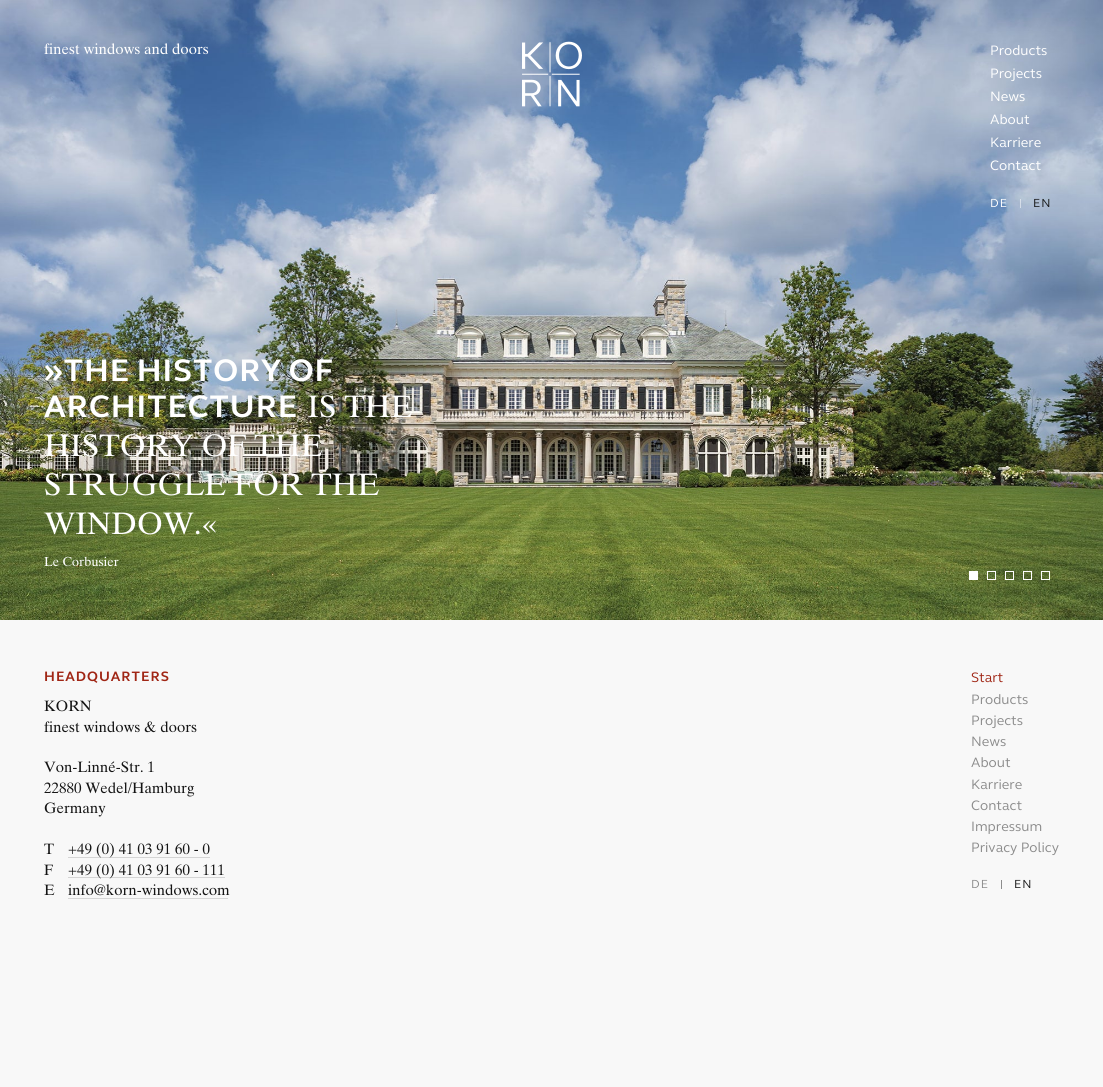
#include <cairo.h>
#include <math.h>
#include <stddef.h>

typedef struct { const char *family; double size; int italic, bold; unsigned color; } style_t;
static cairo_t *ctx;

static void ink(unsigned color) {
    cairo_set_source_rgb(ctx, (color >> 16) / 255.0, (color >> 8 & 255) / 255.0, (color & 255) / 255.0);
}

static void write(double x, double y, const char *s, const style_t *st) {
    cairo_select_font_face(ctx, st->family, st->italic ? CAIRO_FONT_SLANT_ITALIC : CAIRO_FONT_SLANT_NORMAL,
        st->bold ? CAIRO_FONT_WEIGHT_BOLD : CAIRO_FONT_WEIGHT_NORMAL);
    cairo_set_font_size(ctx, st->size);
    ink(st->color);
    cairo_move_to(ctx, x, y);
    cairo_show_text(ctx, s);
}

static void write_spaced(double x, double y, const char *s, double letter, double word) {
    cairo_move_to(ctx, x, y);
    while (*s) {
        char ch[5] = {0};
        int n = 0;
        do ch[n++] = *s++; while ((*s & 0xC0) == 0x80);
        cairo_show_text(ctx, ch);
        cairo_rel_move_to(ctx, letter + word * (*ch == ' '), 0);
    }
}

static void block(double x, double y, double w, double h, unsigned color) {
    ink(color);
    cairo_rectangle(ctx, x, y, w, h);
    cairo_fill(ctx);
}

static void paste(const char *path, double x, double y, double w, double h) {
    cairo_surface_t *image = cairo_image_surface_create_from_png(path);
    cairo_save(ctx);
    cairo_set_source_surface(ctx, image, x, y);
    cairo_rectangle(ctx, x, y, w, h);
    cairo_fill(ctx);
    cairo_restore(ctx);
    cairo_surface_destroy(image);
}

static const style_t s1 = {"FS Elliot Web", 14, 0, 0, 0xffffff};
static const style_t s2 = {"FS Elliot Web", 14, 0, 0, 0xa02615};
static const style_t s3 = {"FS Elliot Web", 14, 0, 0, 0x8c8c8c};

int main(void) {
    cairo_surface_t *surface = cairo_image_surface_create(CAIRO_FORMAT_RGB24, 1103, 1087);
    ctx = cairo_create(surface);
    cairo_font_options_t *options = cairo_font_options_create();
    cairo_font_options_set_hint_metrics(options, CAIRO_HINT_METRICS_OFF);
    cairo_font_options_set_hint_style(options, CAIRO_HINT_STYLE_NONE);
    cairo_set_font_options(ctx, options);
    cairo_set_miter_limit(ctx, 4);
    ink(0xf8f8f8);
    cairo_paint(ctx);
    paste("pic3.png", 0, 0, 1103, 620);
    paste("pic1.png", 44, 43, 165, 12);
    paste("pic2.png", 522, 41, 60, 66);
    write(990, 55, "Products", &s1);
    write(990, 78, "Projects", &s1);
    write(990, 101, "News", &s1);
    write(990, 124, "About", &s1);
    write(990, 147, "Karriere", &s1);
    write(990, 170, "Contact", &s1);
    cairo_set_font_size(ctx, 12);
    write_spaced(990, 207, "DE", 1, 0);
    cairo_set_source_rgba(ctx, 1, 1, 1, 0.5);
    cairo_rectangle(ctx, 1020, 199, 1, 9);
    cairo_fill(ctx);
    ink(0x141414);
    write_spaced(1033, 207, "EN", 1, 0);
    block(969, 571, 9, 9, 0xffffff);
    cairo_rectangle(ctx, 987.5, 571.5, 8, 8);
    cairo_set_line_width(ctx, 1);
    cairo_stroke(ctx);
    cairo_rectangle(ctx, 1005.5, 571.5, 8, 8);
    cairo_stroke(ctx);
    cairo_rectangle(ctx, 1023.5, 571.5, 8, 8);
    cairo_stroke(ctx);
    cairo_rectangle(ctx, 1041.5, 571.5, 8, 8);
    cairo_stroke(ctx);
    cairo_select_font_face(ctx, "FS Elliot Web", CAIRO_FONT_SLANT_NORMAL, CAIRO_FONT_WEIGHT_BOLD);
    cairo_set_font_size(ctx, 32);
    write_spaced(44, 381, "»THE HISTORY OF", 1, -2);
    write_spaced(44, 417, "ARCHITECTURE", 1, 0);
    paste("pic4.png", 308, 395, 104, 23);
    paste("pic5.png", 44, 434, 278, 23);
    paste("pic6.png", 45, 473, 334, 23);
    paste("pic7.png", 44, 512, 172, 23);
    paste("pic8.png", 44, 556, 75, 11);
    cairo_set_font_size(ctx, 14);
    ink(0xa02615);
    write_spaced(44, 681, "HEADQUARTERS", 1, 0);
    paste("pic9.png", 44, 700, 48, 12);
    paste("pic10.png", 44, 721, 153, 12);
    paste("pic11.png", 44, 761, 110, 12);
    paste("pic12.png", 44, 782, 151, 15);
    paste("pic13.png", 44, 802, 62, 15);
    paste("pic14.png", 44, 843, 10, 11);
    paste("pic15.png", 68, 842, 142, 16);
    cairo_set_source_rgba(ctx, 0.078, 0.078, 0.078, 0.15);
    cairo_rectangle(ctx, 68, 857, 142, 1);
    cairo_fill(ctx);
    paste("pic16.png", 44, 864, 9, 11);
    paste("pic17.png", 68, 863, 156, 16);
    cairo_rectangle(ctx, 68, 877, 157, 1);
    cairo_fill(ctx);
    paste("pic18.png", 44, 884, 11, 11);
    paste("pic19.png", 68, 884, 162, 12);
    block(68, 898, 160, 1, 0xd6d6d6);
    write(971, 682, "Start", &s2);
    write(971, 704, "Products", &s3);
    write(971, 725, "Projects", &s3);
    write(971, 746, "News", &s3);
    write(971, 767, "About", &s3);
    write(971, 789, "Karriere", &s3);
    write(971, 810, "Contact", &s3);
    write(971, 831, "Impressum", &s3);
    write(971, 852, "Privacy Policy", &s3);
    cairo_set_font_size(ctx, 12);
    write_spaced(971, 888, "DE", 1, 0);
    block(1001, 880, 1, 9, 0x8c8c8c);
    ink(0x141414);
    write_spaced(1014, 888, "EN", 1, 0);
    cairo_surface_write_to_png(surface, "screenshot.png");
    cairo_font_options_destroy(options);
    cairo_destroy(ctx);
    cairo_surface_destroy(surface);
    return 0;
}
